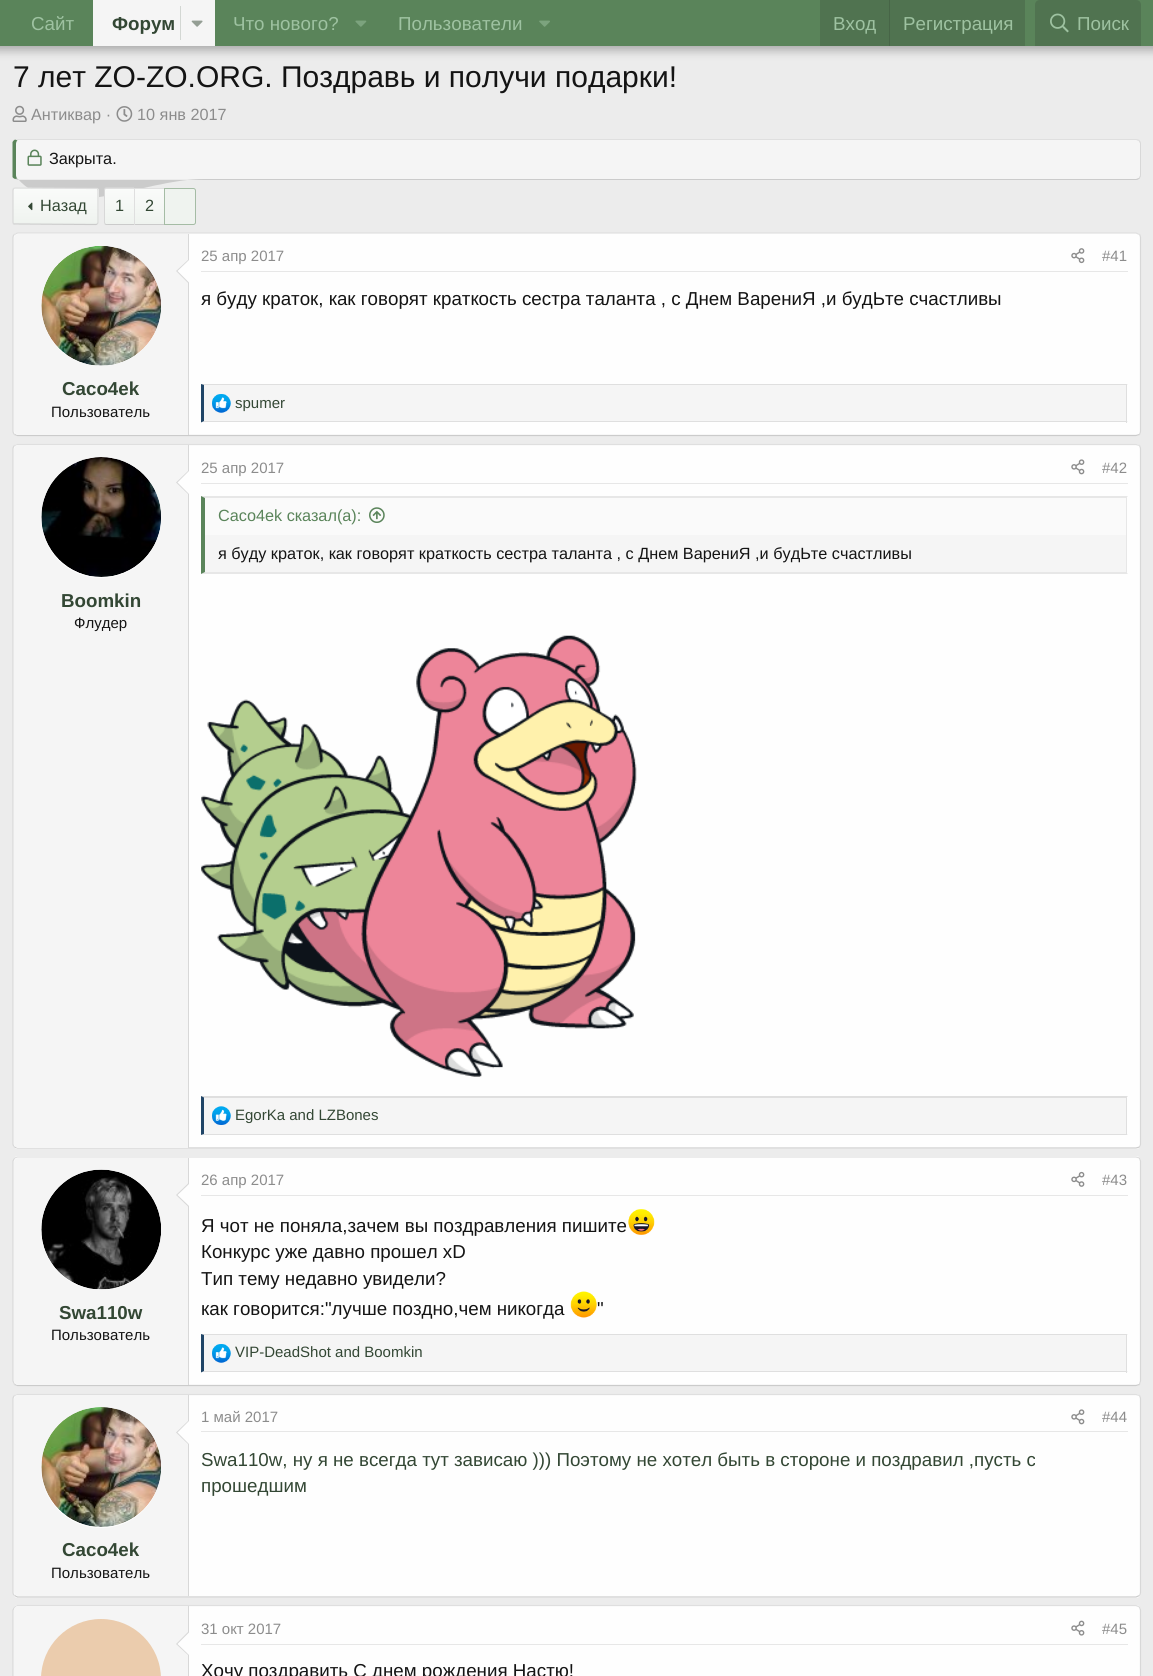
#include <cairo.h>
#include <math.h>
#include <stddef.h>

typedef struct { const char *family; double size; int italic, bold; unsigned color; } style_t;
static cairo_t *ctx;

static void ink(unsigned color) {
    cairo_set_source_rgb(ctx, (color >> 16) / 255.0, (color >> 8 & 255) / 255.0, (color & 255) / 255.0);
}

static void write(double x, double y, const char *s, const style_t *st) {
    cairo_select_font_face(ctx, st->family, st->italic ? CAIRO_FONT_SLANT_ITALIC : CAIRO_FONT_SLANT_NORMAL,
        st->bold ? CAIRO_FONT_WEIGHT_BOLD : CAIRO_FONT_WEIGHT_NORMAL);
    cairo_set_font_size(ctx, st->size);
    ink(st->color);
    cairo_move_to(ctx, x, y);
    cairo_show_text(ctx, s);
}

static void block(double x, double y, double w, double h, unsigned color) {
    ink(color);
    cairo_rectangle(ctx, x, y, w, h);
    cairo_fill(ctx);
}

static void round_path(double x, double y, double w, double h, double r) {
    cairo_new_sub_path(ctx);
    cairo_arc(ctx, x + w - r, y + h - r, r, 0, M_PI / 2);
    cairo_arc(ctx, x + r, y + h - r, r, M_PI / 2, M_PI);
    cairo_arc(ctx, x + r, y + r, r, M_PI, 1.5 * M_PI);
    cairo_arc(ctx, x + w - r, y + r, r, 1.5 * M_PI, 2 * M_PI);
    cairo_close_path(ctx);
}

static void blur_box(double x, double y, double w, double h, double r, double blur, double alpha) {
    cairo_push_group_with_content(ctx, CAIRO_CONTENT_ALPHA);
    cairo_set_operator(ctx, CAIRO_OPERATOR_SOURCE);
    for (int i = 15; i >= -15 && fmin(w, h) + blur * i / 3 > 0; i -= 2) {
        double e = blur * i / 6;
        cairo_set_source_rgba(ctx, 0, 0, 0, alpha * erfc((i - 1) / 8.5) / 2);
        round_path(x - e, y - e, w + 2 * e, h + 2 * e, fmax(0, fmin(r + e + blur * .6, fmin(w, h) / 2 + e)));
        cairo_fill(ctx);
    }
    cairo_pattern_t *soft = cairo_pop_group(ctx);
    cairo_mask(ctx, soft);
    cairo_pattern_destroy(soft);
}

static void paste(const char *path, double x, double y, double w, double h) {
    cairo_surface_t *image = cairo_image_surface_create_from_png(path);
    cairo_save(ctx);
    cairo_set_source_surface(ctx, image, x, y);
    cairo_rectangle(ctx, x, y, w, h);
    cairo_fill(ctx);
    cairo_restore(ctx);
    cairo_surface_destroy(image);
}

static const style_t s1 = {"Liberation Sans", 18.75, 0, 0, 0x9ec2a1};
static const style_t s2 = {"Liberation Sans", 18.75, 0, 1, 0x334734};
static const style_t s3 = {"Liberation Sans", 30, 0, 0, 0x141414};
static const style_t s4 = {"Liberation Sans", 16.25, 0, 0, 0x8c8c8c};
static const style_t s5 = {"Liberation Sans", 16.25, 0, 0, 0x141414};
static const style_t s6 = {"Liberation Sans", 16.25, 0, 0, 0x334734};
static const style_t s7 = {"Liberation Sans", 15, 0, 0, 0x141414};
static const style_t s8 = {"Liberation Sans", 15, 0, 0, 0x8c8c8c};
static const style_t s9 = {"Liberation Sans", 18.75, 0, 0, 0x141414};
static const style_t s10 = {"Liberation Sans", 15, 0, 0, 0x334734};
static const style_t s11 = {"Liberation Sans", 16.25, 0, 0, 0x5a845a};
static const style_t s12 = {"Liberation Sans", 18.75, 0, 0, 0x334734};

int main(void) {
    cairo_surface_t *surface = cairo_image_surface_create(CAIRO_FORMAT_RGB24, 1153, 1676);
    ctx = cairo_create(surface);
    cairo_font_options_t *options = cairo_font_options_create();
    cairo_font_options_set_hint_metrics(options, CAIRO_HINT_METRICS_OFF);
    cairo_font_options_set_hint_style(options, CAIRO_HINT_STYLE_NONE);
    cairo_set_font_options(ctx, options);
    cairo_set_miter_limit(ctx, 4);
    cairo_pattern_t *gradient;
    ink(0xececec);
    cairo_paint(ctx);
    ink(0x000000);
    blur_box(-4, -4, 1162, 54, 0, 5, 0.3);
    block(0, 0, 1153, 46, 0x5a845a);
    write(31, 30, "Сайт", &s1);
    block(93, 0, 122, 46, 0xf5f5f5);
    write(112, 30, "Форум", &s2);
    block(180, 6, 1, 34, 0xd3d7d3);
    paste("pic1.png", 191, 20, 12, 7);
    write(233, 30, "Что нового?", &s1);
    paste("pic2.png", 355, 20, 12, 7);
    write(398, 30, "Пользователи", &s1);
    paste("pic3.png", 539, 20, 11, 7);
    block(820, 0, 205, 46, 0x507350);
    write(833, 30, "Вход", &s1);
    block(889, 0, 1, 46, 0x476547);
    write(903, 30, "Регистрация", &s1);
    ink(0x507350);
    cairo_new_path(ctx);
    cairo_move_to(ctx, 1040, 0);
    cairo_line_to(ctx, 1136, 0);
    cairo_curve_to(ctx, 1139, 0, 1141, 2, 1141, 5);
    cairo_line_to(ctx, 1141, 46);
    cairo_line_to(ctx, 1035, 46);
    cairo_line_to(ctx, 1035, 5);
    cairo_curve_to(ctx, 1035, 2, 1037, 0, 1040, 0);
    cairo_close_path(ctx);
    cairo_fill(ctx);
    paste("pic4.png", 1050, 13, 19, 20);
    write(1077, 30, "Поиск", &s1);
    write(13, 87, "7 лет ZO-ZO.ORG. Поздравь и получи подарки!", &s3);
    paste("pic5.png", 12, 105, 15, 17);
    write(31, 120, "Антиквар ·", &s4);
    paste("pic6.png", 116, 106, 17, 16);
    write(137, 120, "10 янв 2017", &s4);
    ink(0xf5f5f5);
    cairo_new_path(ctx);
    cairo_move_to(ctx, 18, 140);
    cairo_line_to(ctx, 1136, 140);
    cairo_curve_to(ctx, 1138, 140, 1140, 142, 1140, 144);
    cairo_line_to(ctx, 1140, 175);
    cairo_curve_to(ctx, 1140, 177, 1138, 179, 1136, 179);
    cairo_line_to(ctx, 18, 179);
    cairo_curve_to(ctx, 17, 179, 16, 177, 16, 175);
    cairo_line_to(ctx, 16, 144);
    cairo_curve_to(ctx, 16, 142, 17, 140, 18, 140);
    cairo_close_path(ctx);
    cairo_fill(ctx);
    ink(0xdfdfdf);
    cairo_new_path(ctx);
    cairo_move_to(ctx, 18, 139);
    cairo_line_to(ctx, 15, 140);
    cairo_line_to(ctx, 17, 140);
    cairo_line_to(ctx, 1136, 140);
    cairo_line_to(ctx, 1139, 141);
    cairo_line_to(ctx, 1140, 140);
    cairo_curve_to(ctx, 1139, 140, 1138, 139, 1136, 139);
    cairo_close_path(ctx);
    cairo_fill(ctx);
    ink(0xd8d8d8);
    cairo_new_path(ctx);
    cairo_move_to(ctx, 1139.5, 140.5);
    cairo_curve_to(ctx, 1140.5, 141, 1141, 142.5, 1141, 144);
    cairo_line_to(ctx, 1141, 175);
    cairo_curve_to(ctx, 1141, 176.5, 1140.5, 177.5, 1139.5, 178.5);
    cairo_line_to(ctx, 1139, 177.5);
    cairo_curve_to(ctx, 1139.5, 177, 1140, 176, 1140, 175);
    cairo_line_to(ctx, 1140, 144);
    cairo_curve_to(ctx, 1140, 143, 1139.5, 142, 1139, 141);
    cairo_close_path(ctx);
    cairo_fill(ctx);
    ink(0xcbcbcb);
    cairo_new_path(ctx);
    cairo_move_to(ctx, 18, 180);
    cairo_line_to(ctx, 1136, 180);
    cairo_curve_to(ctx, 1138, 180, 1139, 179, 1140, 178);
    cairo_line_to(ctx, 1139, 178);
    cairo_line_to(ctx, 1136, 179);
    cairo_line_to(ctx, 204, 179);
    cairo_curve_to(ctx, 142, 179, 58, 226, 17, 178);
    cairo_line_to(ctx, 15, 179);
    cairo_close_path(ctx);
    cairo_fill(ctx);
    ink(0x5a845a);
    cairo_new_path(ctx);
    cairo_move_to(ctx, 12.5, 142);
    cairo_curve_to(ctx, 13, 141, 14, 140, 15, 139.5);
    cairo_line_to(ctx, 17.5, 140.5);
    cairo_curve_to(ctx, 16.5, 141, 16, 142.5, 16, 144);
    cairo_line_to(ctx, 16, 175);
    cairo_curve_to(ctx, 16, 176.5, 16.5, 177.5, 17, 178.5);
    cairo_line_to(ctx, 15, 179);
    cairo_curve_to(ctx, 14, 178.5, 13, 178, 12.5, 177);
    cairo_close_path(ctx);
    cairo_fill(ctx);
    paste("pic7.png", 27, 149, 15, 17);
    write(49, 164, "Закрыта.", &s5);
    cairo_save(ctx);
    round_path(13, 188, 86, 37, 2.5);
    cairo_clip(ctx);
    gradient = cairo_pattern_create_linear(56, 189, 56, 154);
    cairo_pattern_add_color_stop_rgba(gradient, 0, 0.937, 0.953, 0.937, 1);
    cairo_pattern_add_color_stop_rgba(gradient, 1, 0.98, 0.984, 0.98, 1);
    cairo_set_source(ctx, gradient);
    cairo_pattern_destroy(gradient);
    cairo_rectangle(ctx, 13, 188, 86, 1);
    cairo_fill(ctx);
    gradient = cairo_pattern_create_linear(56, 224, 56, 189);
    cairo_pattern_add_color_stop_rgba(gradient, 0, 0.937, 0.953, 0.937, 1);
    cairo_pattern_add_color_stop_rgba(gradient, 1, 0.98, 0.984, 0.98, 1);
    cairo_set_source(ctx, gradient);
    cairo_pattern_destroy(gradient);
    cairo_rectangle(ctx, 13, 189, 86, 35);
    cairo_fill(ctx);
    gradient = cairo_pattern_create_linear(56, 259, 56, 224);
    cairo_pattern_add_color_stop_rgba(gradient, 0, 0.937, 0.953, 0.937, 1);
    cairo_pattern_add_color_stop_rgba(gradient, 1, 0.98, 0.984, 0.98, 1);
    cairo_set_source(ctx, gradient);
    cairo_pattern_destroy(gradient);
    cairo_rectangle(ctx, 13, 224, 86, 1);
    cairo_fill(ctx);
    cairo_restore(ctx);
    cairo_new_path(ctx);
    cairo_move_to(ctx, 13.5, 188.5);
    cairo_line_to(ctx, 15, 188);
    cairo_line_to(ctx, 97.5, 188.5);
    ink(0xdfdfdf);
    cairo_set_line_width(ctx, 1.2);
    cairo_stroke(ctx);
    cairo_new_path(ctx);
    cairo_move_to(ctx, 97.5, 188.5);
    cairo_line_to(ctx, 98, 190);
    cairo_line_to(ctx, 98, 222.5);
    cairo_line_to(ctx, 97.5, 224);
    ink(0xd8d8d8);
    cairo_stroke(ctx);
    cairo_new_path(ctx);
    cairo_move_to(ctx, 97.5, 224);
    cairo_line_to(ctx, 96, 224.5);
    cairo_line_to(ctx, 13.5, 224);
    ink(0xcbcbcb);
    cairo_stroke(ctx);
    cairo_new_path(ctx);
    cairo_move_to(ctx, 13.5, 224);
    cairo_line_to(ctx, 13, 222.5);
    cairo_line_to(ctx, 13, 190);
    cairo_line_to(ctx, 13.5, 188.5);
    ink(0xd8d8d8);
    cairo_stroke(ctx);
    paste("pic8.png", 28, 202, 5, 9);
    write(40, 211, "Назад", &s6);
    gradient = cairo_pattern_create_linear(119, 224, 119, 189);
    cairo_pattern_add_color_stop_rgba(gradient, 0, 0.937, 0.953, 0.937, 1);
    cairo_pattern_add_color_stop_rgba(gradient, 1, 0.98, 0.984, 0.98, 1);
    cairo_set_source(ctx, gradient);
    cairo_pattern_destroy(gradient);
    cairo_rectangle(ctx, 104, 189, 30, 35);
    cairo_fill(ctx);
    ink(0xdfdfdf);
    cairo_new_path(ctx);
    cairo_move_to(ctx, 106, 187.5);
    cairo_line_to(ctx, 134, 187.5);
    cairo_line_to(ctx, 134, 189);
    cairo_line_to(ctx, 105.5, 189);
    cairo_line_to(ctx, 104.5, 188);
    cairo_close_path(ctx);
    cairo_fill(ctx);
    ink(0xcbcbcb);
    cairo_new_path(ctx);
    cairo_move_to(ctx, 134, 225);
    cairo_line_to(ctx, 109.5, 225);
    cairo_curve_to(ctx, 107, 225, 105.5, 225, 105, 224.5);
    cairo_line_to(ctx, 104.5, 224);
    cairo_line_to(ctx, 105.5, 223.5);
    cairo_line_to(ctx, 106, 224);
    cairo_line_to(ctx, 134, 224);
    cairo_close_path(ctx);
    cairo_fill(ctx);
    ink(0xd8d8d8);
    cairo_new_path(ctx);
    cairo_move_to(ctx, 105.5, 223.5);
    cairo_line_to(ctx, 104.5, 224);
    cairo_line_to(ctx, 104, 223);
    cairo_line_to(ctx, 104, 189.5);
    cairo_line_to(ctx, 104.5, 188);
    cairo_line_to(ctx, 105.5, 189);
    cairo_line_to(ctx, 105, 190);
    cairo_line_to(ctx, 105, 222.5);
    cairo_close_path(ctx);
    cairo_fill(ctx);
    write(115, 211, "1", &s6);
    gradient = cairo_pattern_create_linear(149, 224, 149, 189);
    cairo_pattern_add_color_stop_rgba(gradient, 0, 0.937, 0.953, 0.937, 1);
    cairo_pattern_add_color_stop_rgba(gradient, 1, 0.98, 0.984, 0.98, 1);
    cairo_set_source(ctx, gradient);
    cairo_pattern_destroy(gradient);
    cairo_rectangle(ctx, 135, 189, 29, 35);
    cairo_fill(ctx);
    block(134, 188, 30, 1, 0xdfdfdf);
    block(134, 224, 30, 1, 0xcbcbcb);
    block(134, 188, 1, 37, 0xdfdfdf);
    write(145, 211, "2", &s6);
    ink(0xeff3ef);
    cairo_new_path(ctx);
    cairo_move_to(ctx, 164.5, 188.5);
    cairo_line_to(ctx, 193.5, 188.5);
    cairo_curve_to(ctx, 194.5, 188.5, 195.5, 189.5, 195.5, 190.5);
    cairo_line_to(ctx, 195.5, 222.5);
    cairo_curve_to(ctx, 195.5, 223.5, 194.5, 224.5, 193.5, 224.5);
    cairo_line_to(ctx, 164.5, 224.5);
    cairo_close_path(ctx);
    cairo_fill_preserve(ctx);
    ink(0xa5bca5);
    cairo_set_line_width(ctx, 1);
    cairo_stroke(ctx);
    ink(0xfefefe);
    round_path(13, 233, 1128, 203, 5);
    cairo_fill(ctx);
    cairo_new_path(ctx);
    cairo_move_to(ctx, 14.5, 234.5);
    cairo_line_to(ctx, 17.5, 233);
    cairo_line_to(ctx, 1136, 233);
    cairo_line_to(ctx, 1139.5, 234.5);
    ink(0xdfdfdf);
    cairo_set_line_width(ctx, 1.2);
    cairo_stroke(ctx);
    cairo_new_path(ctx);
    cairo_move_to(ctx, 1139.5, 234.5);
    cairo_curve_to(ctx, 1140, 235, 1140.5, 236.5, 1140.5, 237.5);
    cairo_line_to(ctx, 1140.5, 431);
    cairo_curve_to(ctx, 1140.5, 432.5, 1140, 433.5, 1139.5, 434.5);
    ink(0xd8d8d8);
    cairo_stroke(ctx);
    cairo_new_path(ctx);
    cairo_move_to(ctx, 1139.5, 434.5);
    cairo_line_to(ctx, 1136, 435.5);
    cairo_line_to(ctx, 17.5, 435.5);
    cairo_line_to(ctx, 14.5, 434.5);
    ink(0xcbcbcb);
    cairo_stroke(ctx);
    cairo_new_path(ctx);
    cairo_move_to(ctx, 14.5, 434.5);
    cairo_curve_to(ctx, 13.5, 433.5, 13, 432.5, 13, 431);
    cairo_line_to(ctx, 13, 237.5);
    cairo_curve_to(ctx, 13, 236.5, 13.5, 235, 14.5, 234.5);
    ink(0xd8d8d8);
    cairo_stroke(ctx);
    ink(0xf5f5f5);
    cairo_new_path(ctx);
    cairo_move_to(ctx, 18, 234);
    cairo_line_to(ctx, 189, 234);
    cairo_line_to(ctx, 189, 435);
    cairo_line_to(ctx, 18, 435);
    cairo_curve_to(ctx, 16, 435, 14, 433, 14, 431);
    cairo_line_to(ctx, 14, 238);
    cairo_curve_to(ctx, 14, 236, 16, 234, 18, 234);
    cairo_close_path(ctx);
    cairo_fill(ctx);
    block(188, 234, 1, 201, 0xd8d8d8);
    ink(0xfefefe);
    cairo_arc(ctx, 101, 306, 60, 0, 2 * M_PI);
    cairo_fill(ctx);
    paste("pic9.png", 41, 246, 120, 120);
    ink(0xd8d8d8);
    cairo_new_path(ctx);
    cairo_move_to(ctx, 189, 259);
    cairo_line_to(ctx, 189, 284);
    cairo_line_to(ctx, 176, 271);
    cairo_close_path(ctx);
    cairo_fill(ctx);
    ink(0xfefefe);
    cairo_new_path(ctx);
    cairo_move_to(ctx, 189, 260);
    cairo_line_to(ctx, 189, 282.5);
    cairo_line_to(ctx, 177.5, 271);
    cairo_close_path(ctx);
    cairo_fill(ctx);
    write(62, 395, "Caco4ek", &s2);
    write(51, 417, "Пользователь", &s7);
    block(201, 271, 927, 1, 0xe7e7e7);
    write(201, 261, "25 апр 2017", &s8);
    paste("pic10.png", 1071, 248, 14, 16);
    write(1102, 261, "#41", &s8);
    write(201, 305, "я буду краток, как говорят краткость сестра таланта , с Днем ВарениЯ ,и будЬте счастливы", &s9);
    block(204, 385, 922, 36, 0xf5f5f5);
    ink(0xdfdfdf);
    cairo_new_path(ctx);
    cairo_move_to(ctx, 201, 384);
    cairo_line_to(ctx, 1128, 384);
    cairo_line_to(ctx, 1126, 385);
    cairo_line_to(ctx, 204, 385);
    cairo_close_path(ctx);
    cairo_fill(ctx);
    block(1126, 384, 1, 39, 0xdfdfdf);
    cairo_new_path(ctx);
    cairo_move_to(ctx, 1128, 422);
    cairo_line_to(ctx, 201, 422);
    cairo_line_to(ctx, 204, 421);
    cairo_line_to(ctx, 1126, 421);
    cairo_close_path(ctx);
    cairo_fill(ctx);
    ink(0x204567);
    cairo_new_path(ctx);
    cairo_move_to(ctx, 201, 422.5);
    cairo_line_to(ctx, 201, 384);
    cairo_line_to(ctx, 204, 385);
    cairo_line_to(ctx, 204, 421);
    cairo_close_path(ctx);
    cairo_fill(ctx);
    paste("pic11.png", 212, 394, 19, 19);
    write(235, 408, "spumer", &s10);
    ink(0xfefefe);
    round_path(13, 444, 1128, 705, 5);
    cairo_fill(ctx);
    cairo_new_path(ctx);
    cairo_move_to(ctx, 14.5, 445.5);
    cairo_line_to(ctx, 17.5, 444.5);
    cairo_line_to(ctx, 1136, 444.5);
    cairo_line_to(ctx, 1139.5, 445.5);
    ink(0xdfdfdf);
    cairo_stroke(ctx);
    cairo_new_path(ctx);
    cairo_move_to(ctx, 1139.5, 445.5);
    cairo_curve_to(ctx, 1140, 446.5, 1140.5, 447.5, 1140.5, 449);
    cairo_line_to(ctx, 1140.5, 1144);
    cairo_curve_to(ctx, 1140.5, 1145, 1140, 1146, 1139.5, 1147);
    ink(0xd8d8d8);
    cairo_stroke(ctx);
    cairo_new_path(ctx);
    cairo_move_to(ctx, 1139.5, 1147);
    cairo_line_to(ctx, 1136, 1148);
    cairo_line_to(ctx, 17.5, 1148);
    cairo_line_to(ctx, 14.5, 1147);
    ink(0xcbcbcb);
    cairo_stroke(ctx);
    cairo_new_path(ctx);
    cairo_move_to(ctx, 14.5, 1147);
    cairo_curve_to(ctx, 13.5, 1146, 13, 1145, 13, 1144);
    cairo_line_to(ctx, 13, 449);
    cairo_curve_to(ctx, 13, 447.5, 13.5, 446.5, 14.5, 445.5);
    ink(0xd8d8d8);
    cairo_stroke(ctx);
    ink(0xf5f5f5);
    cairo_new_path(ctx);
    cairo_move_to(ctx, 18, 445);
    cairo_line_to(ctx, 189, 445);
    cairo_line_to(ctx, 189, 1148);
    cairo_line_to(ctx, 18, 1148);
    cairo_curve_to(ctx, 16, 1148, 14, 1146, 14, 1144);
    cairo_line_to(ctx, 14, 449);
    cairo_curve_to(ctx, 14, 447, 16, 445, 18, 445);
    cairo_close_path(ctx);
    cairo_fill(ctx);
    block(188, 445, 1, 703, 0xd8d8d8);
    ink(0xfefefe);
    cairo_arc(ctx, 101, 518, 60, 0, 2 * M_PI);
    cairo_fill(ctx);
    paste("pic12.png", 41, 457, 120, 120);
    ink(0xd8d8d8);
    cairo_new_path(ctx);
    cairo_move_to(ctx, 189, 470);
    cairo_line_to(ctx, 189, 495);
    cairo_line_to(ctx, 176, 482.5);
    cairo_close_path(ctx);
    cairo_fill(ctx);
    ink(0xfefefe);
    cairo_new_path(ctx);
    cairo_move_to(ctx, 189, 471);
    cairo_line_to(ctx, 189, 494);
    cairo_line_to(ctx, 177.5, 482.5);
    cairo_close_path(ctx);
    cairo_fill(ctx);
    write(61, 607, "Boomkin", &s2);
    write(74, 628, "Флудер", &s7);
    block(201, 483, 927, 1, 0xe7e7e7);
    write(201, 473, "25 апр 2017", &s8);
    paste("pic13.png", 1071, 459, 14, 16);
    write(1102, 473, "#42", &s8);
    block(205, 535, 921, 37, 0xf5f5f5);
    ink(0xe7e7e7);
    cairo_new_path(ctx);
    cairo_move_to(ctx, 201, 496);
    cairo_line_to(ctx, 1128, 496);
    cairo_line_to(ctx, 1126, 498);
    cairo_line_to(ctx, 205, 498);
    cairo_close_path(ctx);
    cairo_fill(ctx);
    block(1126, 496, 1, 78, 0xe7e7e7);
    cairo_new_path(ctx);
    cairo_move_to(ctx, 1128, 574);
    cairo_line_to(ctx, 201, 574);
    cairo_line_to(ctx, 205, 572);
    cairo_line_to(ctx, 1126, 572);
    cairo_close_path(ctx);
    cairo_fill(ctx);
    ink(0x5a845a);
    cairo_new_path(ctx);
    cairo_move_to(ctx, 201, 574);
    cairo_line_to(ctx, 201, 496);
    cairo_line_to(ctx, 205, 498);
    cairo_line_to(ctx, 205, 572);
    cairo_close_path(ctx);
    cairo_fill(ctx);
    block(205, 498, 921, 37, 0xfafafa);
    write(218, 521, "Caco4ek сказал(а):", &s11);
    paste("pic14.png", 369, 507, 16, 16);
    write(218, 559, "я буду краток, как говорят краткость сестра таланта , с Днем ВарениЯ ,и будЬте счастливы", &s5);
    paste("pic15.png", 201, 635, 436, 442);
    block(204, 1098, 922, 36, 0xf5f5f5);
    ink(0xdfdfdf);
    cairo_new_path(ctx);
    cairo_move_to(ctx, 201, 1096);
    cairo_line_to(ctx, 1128, 1096);
    cairo_line_to(ctx, 1126, 1098);
    cairo_line_to(ctx, 204, 1098);
    cairo_close_path(ctx);
    cairo_fill(ctx);
    block(1126, 1096, 1, 39, 0xdfdfdf);
    cairo_new_path(ctx);
    cairo_move_to(ctx, 1128, 1135);
    cairo_line_to(ctx, 201, 1135);
    cairo_line_to(ctx, 204, 1134);
    cairo_line_to(ctx, 1126, 1134);
    cairo_close_path(ctx);
    cairo_fill(ctx);
    ink(0x204567);
    cairo_new_path(ctx);
    cairo_move_to(ctx, 201, 1135);
    cairo_line_to(ctx, 201, 1096);
    cairo_line_to(ctx, 204, 1097.5);
    cairo_line_to(ctx, 204, 1134);
    cairo_close_path(ctx);
    cairo_fill(ctx);
    paste("pic16.png", 212, 1106, 19, 19);
    write(235, 1120, "EgorKa and LZBones", &s10);
    ink(0xfefefe);
    round_path(13, 1156, 1128, 230, 5);
    cairo_fill(ctx);
    cairo_new_path(ctx);
    cairo_move_to(ctx, 14.5, 1158);
    cairo_line_to(ctx, 17.5, 1157);
    cairo_line_to(ctx, 1136, 1157);
    cairo_line_to(ctx, 1139.5, 1158);
    ink(0xdfdfdf);
    cairo_stroke(ctx);
    cairo_new_path(ctx);
    cairo_move_to(ctx, 1139.5, 1158);
    cairo_line_to(ctx, 1140.5, 1161);
    cairo_line_to(ctx, 1140.5, 1344.5);
    cairo_line_to(ctx, 1140.5, 1381);
    cairo_line_to(ctx, 1139.5, 1384.5);
    ink(0xd8d8d8);
    cairo_stroke(ctx);
    cairo_new_path(ctx);
    cairo_move_to(ctx, 1139.5, 1384.5);
    cairo_line_to(ctx, 1136, 1385.5);
    cairo_line_to(ctx, 17.5, 1385.5);
    cairo_line_to(ctx, 14.5, 1384.5);
    ink(0xcbcbcb);
    cairo_stroke(ctx);
    cairo_new_path(ctx);
    cairo_move_to(ctx, 14.5, 1384.5);
    cairo_line_to(ctx, 13, 1381);
    cairo_line_to(ctx, 13, 1161);
    cairo_line_to(ctx, 14.5, 1158);
    ink(0xd8d8d8);
    cairo_stroke(ctx);
    ink(0xf5f5f5);
    cairo_new_path(ctx);
    cairo_move_to(ctx, 18, 1158);
    cairo_line_to(ctx, 189, 1158);
    cairo_line_to(ctx, 189, 1385);
    cairo_line_to(ctx, 18, 1385);
    cairo_curve_to(ctx, 16, 1385, 14, 1383, 14, 1381);
    cairo_line_to(ctx, 14, 1162);
    cairo_curve_to(ctx, 14, 1160, 16, 1158, 18, 1158);
    cairo_close_path(ctx);
    cairo_fill(ctx);
    block(188, 1158, 1, 227, 0xd8d8d8);
    ink(0xfefefe);
    cairo_arc(ctx, 101, 1230, 60, 0, 2 * M_PI);
    cairo_fill(ctx);
    paste("pic17.png", 41, 1169, 120, 121);
    ink(0xd8d8d8);
    cairo_new_path(ctx);
    cairo_move_to(ctx, 189, 1182.5);
    cairo_line_to(ctx, 189, 1207.5);
    cairo_line_to(ctx, 176, 1195);
    cairo_close_path(ctx);
    cairo_fill(ctx);
    ink(0xfefefe);
    cairo_new_path(ctx);
    cairo_move_to(ctx, 189, 1184);
    cairo_line_to(ctx, 189, 1206);
    cairo_line_to(ctx, 177.5, 1195);
    cairo_close_path(ctx);
    cairo_fill(ctx);
    write(59, 1319, "Swa110w", &s2);
    write(51, 1340, "Пользователь", &s7);
    block(201, 1195, 927, 1, 0xe7e7e7);
    write(201, 1185, "26 апр 2017", &s8);
    paste("pic18.png", 1071, 1171, 14, 16);
    write(1102, 1185, "#43", &s8);
    write(201, 1232, "Я чот не поняла,зачем вы поздравления пишите", &s9);
    paste("pic19.png", 628, 1209, 27, 26);
    write(201, 1258, "Конкурс уже давно прошел хD", &s9);
    write(201, 1285, "Тип тему недавно увидели?", &s9);
    write(201, 1315, "как говорится:\"лучше поздно,чем никогда", &s9);
    paste("pic20.png", 570, 1291, 27, 27);
    write(597, 1315, "\"", &s9);
    block(204, 1335, 922, 36, 0xf5f5f5);
    ink(0xdfdfdf);
    cairo_new_path(ctx);
    cairo_move_to(ctx, 201, 1334);
    cairo_line_to(ctx, 1128, 1334);
    cairo_line_to(ctx, 1126, 1335);
    cairo_line_to(ctx, 204, 1335);
    cairo_close_path(ctx);
    cairo_fill(ctx);
    block(1126, 1334, 1, 39, 0xdfdfdf);
    cairo_new_path(ctx);
    cairo_move_to(ctx, 1128, 1372);
    cairo_line_to(ctx, 201, 1372);
    cairo_line_to(ctx, 204, 1371);
    cairo_line_to(ctx, 1126, 1371);
    cairo_close_path(ctx);
    cairo_fill(ctx);
    ink(0x204567);
    cairo_new_path(ctx);
    cairo_move_to(ctx, 201, 1372.5);
    cairo_line_to(ctx, 201, 1334);
    cairo_line_to(ctx, 204, 1335);
    cairo_line_to(ctx, 204, 1371);
    cairo_close_path(ctx);
    cairo_fill(ctx);
    paste("pic11.png", 212, 1344, 19, 19);
    write(235, 1357, "VIP-DeadShot and Boomkin", &s10);
    ink(0xfefefe);
    round_path(13, 1394, 1128, 204, 5);
    cairo_fill(ctx);
    cairo_new_path(ctx);
    cairo_move_to(ctx, 14.5, 1395.5);
    cairo_line_to(ctx, 17.5, 1394.5);
    cairo_line_to(ctx, 1136, 1394.5);
    cairo_line_to(ctx, 1139.5, 1395.5);
    ink(0xdfdfdf);
    cairo_stroke(ctx);
    cairo_new_path(ctx);
    cairo_move_to(ctx, 1139.5, 1395.5);
    cairo_curve_to(ctx, 1140, 1396.5, 1140.5, 1397.5, 1140.5, 1399);
    cairo_line_to(ctx, 1140.5, 1592.5);
    cairo_curve_to(ctx, 1140.5, 1593.5, 1140, 1595, 1139.5, 1595.5);
    ink(0xd8d8d8);
    cairo_stroke(ctx);
    cairo_new_path(ctx);
    cairo_move_to(ctx, 1139.5, 1595.5);
    cairo_line_to(ctx, 1136, 1597);
    cairo_line_to(ctx, 17.5, 1597);
    cairo_line_to(ctx, 14.5, 1595.5);
    ink(0xcbcbcb);
    cairo_stroke(ctx);
    cairo_new_path(ctx);
    cairo_move_to(ctx, 14.5, 1595.5);
    cairo_curve_to(ctx, 13.5, 1595, 13, 1593.5, 13, 1592.5);
    cairo_line_to(ctx, 13, 1399);
    cairo_curve_to(ctx, 13, 1397.5, 13.5, 1396.5, 14.5, 1395.5);
    ink(0xd8d8d8);
    cairo_stroke(ctx);
    block(201, 1431, 927, 1, 0xe7e7e7);
    write(201, 1422, "1 май 2017", &s8);
    paste("pic13.png", 1071, 1409, 14, 16);
    write(1102, 1422, "#44", &s8);
    write(201, 1466, "Swa110w, ну я не всегда тут зависаю ))) Поэтому не хотел быть в стороне и поздравил ,пусть с", &s12);
    write(201, 1492, "прошедшим", &s12);
    ink(0xf5f5f5);
    cairo_new_path(ctx);
    cairo_move_to(ctx, 18, 1395);
    cairo_line_to(ctx, 189, 1395);
    cairo_line_to(ctx, 189, 1596);
    cairo_line_to(ctx, 18, 1596);
    cairo_curve_to(ctx, 16, 1596, 14, 1594, 14, 1592);
    cairo_line_to(ctx, 14, 1399);
    cairo_curve_to(ctx, 14, 1397, 16, 1395, 18, 1395);
    cairo_close_path(ctx);
    cairo_fill(ctx);
    block(188, 1395, 1, 201, 0xd8d8d8);
    ink(0xfefefe);
    cairo_arc(ctx, 101, 1468, 60, 0, 2 * M_PI);
    cairo_fill(ctx);
    paste("pic21.png", 41, 1407, 120, 120);
    ink(0xd8d8d8);
    cairo_new_path(ctx);
    cairo_move_to(ctx, 189, 1420);
    cairo_line_to(ctx, 189, 1445);
    cairo_line_to(ctx, 176, 1432.5);
    cairo_close_path(ctx);
    cairo_fill(ctx);
    ink(0xfefefe);
    cairo_new_path(ctx);
    cairo_move_to(ctx, 189, 1421);
    cairo_line_to(ctx, 189, 1444);
    cairo_line_to(ctx, 177.5, 1432.5);
    cairo_close_path(ctx);
    cairo_fill(ctx);
    write(62, 1556, "Caco4ek", &s2);
    write(51, 1578, "Пользователь", &s7);
    ink(0xfefefe);
    round_path(13, 1605, 1128, 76, 5);
    cairo_fill(ctx);
    cairo_new_path(ctx);
    cairo_move_to(ctx, 14.5, 1607);
    cairo_line_to(ctx, 17.5, 1605.5);
    cairo_line_to(ctx, 1136, 1605.5);
    cairo_line_to(ctx, 1139.5, 1607);
    ink(0xdfdfdf);
    cairo_stroke(ctx);
    cairo_new_path(ctx);
    cairo_move_to(ctx, 1139.5, 1607);
    cairo_line_to(ctx, 1140.5, 1610);
    cairo_line_to(ctx, 1140.5, 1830.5);
    cairo_line_to(ctx, 1139.5, 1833);
    ink(0xd8d8d8);
    cairo_stroke(ctx);
    cairo_new_path(ctx);
    cairo_move_to(ctx, 14.5, 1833);
    cairo_line_to(ctx, 13, 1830.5);
    cairo_line_to(ctx, 13, 1646.5);
    cairo_line_to(ctx, 13, 1610);
    cairo_line_to(ctx, 14.5, 1607);
    cairo_stroke(ctx);
    ink(0xf5f5f5);
    cairo_new_path(ctx);
    cairo_move_to(ctx, 18, 1606);
    cairo_line_to(ctx, 189, 1606);
    cairo_line_to(ctx, 189, 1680);
    cairo_line_to(ctx, 18, 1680);
    cairo_curve_to(ctx, 16, 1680, 14, 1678, 14, 1676);
    cairo_line_to(ctx, 14, 1610);
    cairo_curve_to(ctx, 14, 1608, 16, 1606, 18, 1606);
    cairo_close_path(ctx);
    cairo_fill(ctx);
    block(188, 1606, 1, 70, 0xd8d8d8);
    ink(0xebccad);
    round_path(41, 1619, 120, 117, 60);
    cairo_fill(ctx);
    ink(0xd8d8d8);
    cairo_new_path(ctx);
    cairo_move_to(ctx, 189, 1631);
    cairo_line_to(ctx, 189, 1656);
    cairo_line_to(ctx, 176, 1644);
    cairo_close_path(ctx);
    cairo_fill(ctx);
    ink(0xfefefe);
    cairo_new_path(ctx);
    cairo_move_to(ctx, 189, 1632.5);
    cairo_line_to(ctx, 189, 1655);
    cairo_line_to(ctx, 177.5, 1644);
    cairo_close_path(ctx);
    cairo_fill(ctx);
    block(201, 1644, 927, 1, 0xe7e7e7);
    write(201, 1634, "31 окт 2017", &s8);
    paste("pic22.png", 1071, 1620, 14, 16);
    write(1102, 1634, "#45", &s8);
    write(201, 1677, "Хочу поздравить С днем рождения Настю!", &s9);
    cairo_surface_write_to_png(surface, "screenshot.png");
    cairo_font_options_destroy(options);
    cairo_destroy(ctx);
    cairo_surface_destroy(surface);
    return 0;
}
